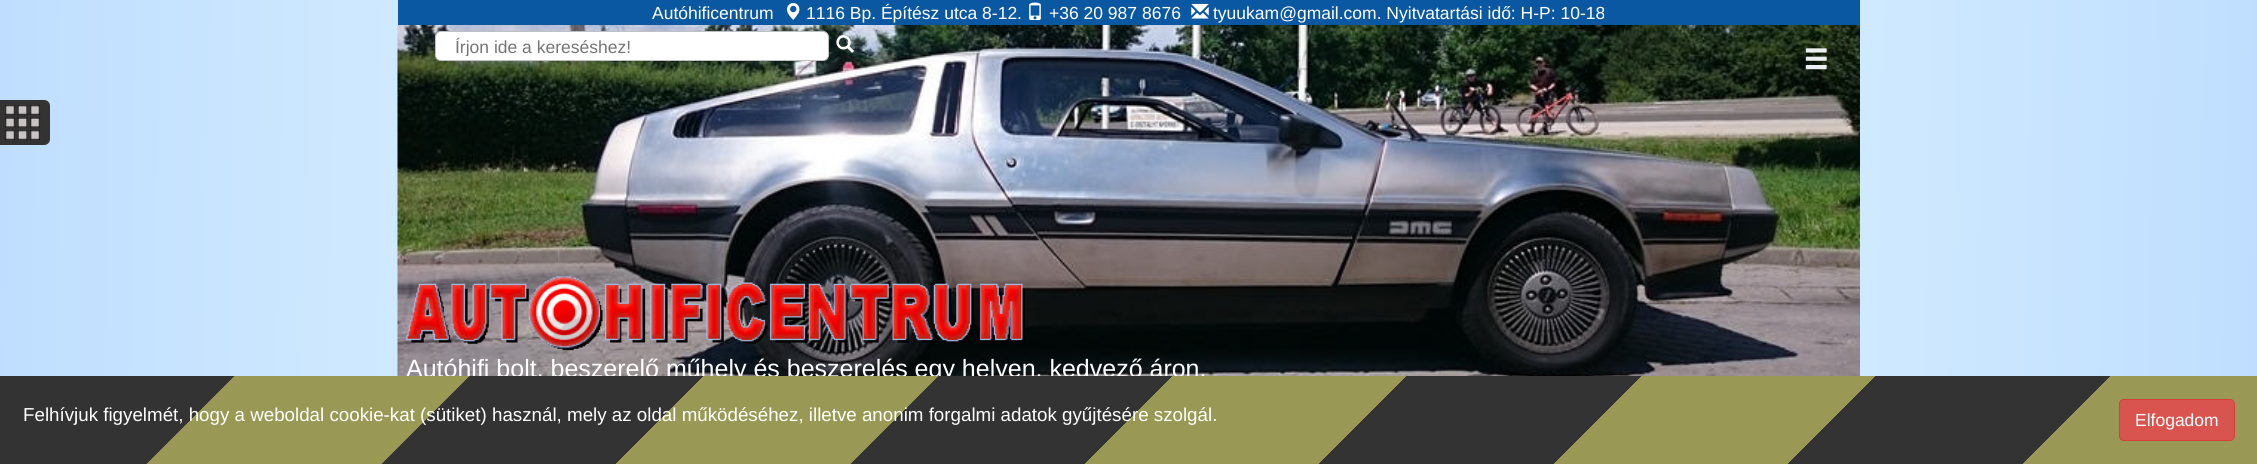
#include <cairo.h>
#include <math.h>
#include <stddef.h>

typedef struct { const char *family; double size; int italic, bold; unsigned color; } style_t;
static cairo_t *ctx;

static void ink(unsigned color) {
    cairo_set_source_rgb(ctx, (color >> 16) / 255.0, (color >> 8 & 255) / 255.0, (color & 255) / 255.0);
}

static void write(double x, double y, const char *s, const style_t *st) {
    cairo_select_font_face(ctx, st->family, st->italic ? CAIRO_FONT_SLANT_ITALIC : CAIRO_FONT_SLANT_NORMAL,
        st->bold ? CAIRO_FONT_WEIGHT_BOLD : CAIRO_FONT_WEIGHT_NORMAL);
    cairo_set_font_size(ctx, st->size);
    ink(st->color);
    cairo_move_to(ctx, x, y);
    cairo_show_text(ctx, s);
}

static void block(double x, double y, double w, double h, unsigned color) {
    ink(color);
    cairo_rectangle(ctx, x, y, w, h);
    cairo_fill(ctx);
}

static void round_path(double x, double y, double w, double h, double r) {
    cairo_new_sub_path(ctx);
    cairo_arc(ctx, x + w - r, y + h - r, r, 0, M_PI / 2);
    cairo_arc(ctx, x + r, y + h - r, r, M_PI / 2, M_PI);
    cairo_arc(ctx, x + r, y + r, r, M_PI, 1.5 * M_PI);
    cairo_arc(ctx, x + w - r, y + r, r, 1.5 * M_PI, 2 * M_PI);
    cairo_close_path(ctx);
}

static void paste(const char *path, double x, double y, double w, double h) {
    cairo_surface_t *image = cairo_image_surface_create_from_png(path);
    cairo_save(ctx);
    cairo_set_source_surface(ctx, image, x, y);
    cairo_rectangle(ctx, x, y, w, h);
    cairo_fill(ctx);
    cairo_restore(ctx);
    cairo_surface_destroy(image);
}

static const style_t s1 = {"Liberation Sans", 17.5, 0, 0, 0xffffff};
static const style_t s2 = {"Liberation Sans", 17.5, 0, 0, 0x757575};
static const style_t s3 = {"Liberation Sans", 25, 0, 0, 0xffffff};
static const style_t s4 = {"Liberation Sans", 18.75, 0, 0, 0xffffff};

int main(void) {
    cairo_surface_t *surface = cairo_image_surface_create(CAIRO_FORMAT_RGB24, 2257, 464);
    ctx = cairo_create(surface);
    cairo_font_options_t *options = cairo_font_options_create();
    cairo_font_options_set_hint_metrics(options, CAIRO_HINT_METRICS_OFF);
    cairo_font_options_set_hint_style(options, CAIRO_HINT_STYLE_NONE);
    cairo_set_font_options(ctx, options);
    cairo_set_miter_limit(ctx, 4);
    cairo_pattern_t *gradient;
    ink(0xffffff);
    cairo_paint(ctx);
    gradient = cairo_pattern_create_linear(-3.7, 213, 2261, 252);
    cairo_pattern_add_color_stop_rgba(gradient, 0, 0.749, 0.871, 1, 1);
    cairo_pattern_add_color_stop_rgba(gradient, 0.5, 0.929, 0.996, 1, 1);
    cairo_pattern_add_color_stop_rgba(gradient, 1, 0.749, 0.871, 1, 1);
    cairo_set_source(ctx, gradient);
    cairo_pattern_destroy(gradient);
    cairo_rectangle(ctx, 0, 0, 2257, 376);
    cairo_fill(ctx);
    ink(0x333333);
    cairo_new_path(ctx);
    cairo_move_to(ctx, 0, 100);
    cairo_line_to(ctx, 44, 100);
    cairo_curve_to(ctx, 47.5, 100, 50, 102.5, 50, 106);
    cairo_line_to(ctx, 50, 139);
    cairo_curve_to(ctx, 50, 142.5, 47.5, 145, 44, 145);
    cairo_line_to(ctx, 0, 145);
    cairo_close_path(ctx);
    cairo_fill(ctx);
    paste("pic1.png", 5, 105, 36, 36);
    block(398, 0, 1462, 25, 0x0b58a2);
    write(652, 19, "Autóhificentrum", &s1);
    paste("pic2.png", 786, 3, 14, 17);
    write(806, 19, "1116 Bp. Építész utca 8-12.", &s1);
    paste("pic3.png", 1029, 2, 12, 18);
    write(1049, 19, "+36 20 987 8676", &s1);
    paste("pic4.png", 1191, 3, 18, 16);
    write(1213, 19, "tyuukam@gmail.com. Nyitvatartási idő: H-P: 10-18", &s1);
    paste("pic5.png", 397, 25, 1463, 351);
    round_path(435.5, 31.5, 393, 29, 5.5);
    cairo_fill_preserve(ctx);
    ink(0xc0c0c0);
    cairo_set_line_width(ctx, 1);
    cairo_stroke(ctx);
    cairo_save(ctx);
    cairo_rectangle(ctx, 455, 36, 354, 20);
    cairo_clip(ctx);
    write(455, 53, "Írjon ide a kereséshez!", &s2);
    cairo_restore(ctx);
    paste("pic6.png", 836, 35, 18, 18);
    paste("pic7.png", 1805, 48, 22, 22);
    paste("pic8.png", 406, 276, 619, 75);
    write(406, 377, "Autóhifi bolt, beszerelő műhely és beszerelés egy helyen, kedvező áron.", &s3);
    gradient = cairo_pattern_create_linear(542, -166, 1715, 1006);
    cairo_pattern_add_color_stop_rgba(gradient, 0.1, 0.2, 0.2, 0.2, 1);
    cairo_pattern_add_color_stop_rgba(gradient, 0.1, 0.6, 0.6, 0.333, 1);
    cairo_pattern_add_color_stop_rgba(gradient, 0.2, 0.6, 0.6, 0.333, 1);
    cairo_pattern_add_color_stop_rgba(gradient, 0.2, 0.2, 0.2, 0.2, 1);
    cairo_pattern_add_color_stop_rgba(gradient, 0.3, 0.2, 0.2, 0.2, 1);
    cairo_pattern_add_color_stop_rgba(gradient, 0.3, 0.6, 0.6, 0.333, 1);
    cairo_pattern_add_color_stop_rgba(gradient, 0.4, 0.6, 0.6, 0.333, 1);
    cairo_pattern_add_color_stop_rgba(gradient, 0.4, 0.2, 0.2, 0.2, 1);
    cairo_pattern_add_color_stop_rgba(gradient, 0.5, 0.2, 0.2, 0.2, 1);
    cairo_pattern_add_color_stop_rgba(gradient, 0.5, 0.6, 0.6, 0.333, 1);
    cairo_pattern_add_color_stop_rgba(gradient, 0.6, 0.6, 0.6, 0.333, 1);
    cairo_pattern_add_color_stop_rgba(gradient, 0.6, 0.2, 0.2, 0.2, 1);
    cairo_pattern_add_color_stop_rgba(gradient, 0.7, 0.2, 0.2, 0.2, 1);
    cairo_pattern_add_color_stop_rgba(gradient, 0.7, 0.6, 0.6, 0.333, 1);
    cairo_pattern_add_color_stop_rgba(gradient, 0.8, 0.6, 0.6, 0.333, 1);
    cairo_pattern_add_color_stop_rgba(gradient, 0.8, 0.2, 0.2, 0.2, 1);
    cairo_pattern_add_color_stop_rgba(gradient, 0.9, 0.2, 0.2, 0.2, 1);
    cairo_pattern_add_color_stop_rgba(gradient, 0.9, 0.6, 0.6, 0.333, 1);
    cairo_pattern_add_color_stop_rgba(gradient, 1, 0.6, 0.6, 0.333, 1);
    cairo_pattern_add_color_stop_rgba(gradient, 1, 0.2, 0.2, 0.2, 1);
    cairo_set_source(ctx, gradient);
    cairo_pattern_destroy(gradient);
    cairo_rectangle(ctx, 0, 376, 2257, 88);
    cairo_fill(ctx);
    write(23, 421, "Felhívjuk figyelmét, hogy a weboldal cookie-kat (sütiket) használ, mely az oldal működéséhez, illetve anonim forgalmi adatok gyűjtésére szolgál.", &s4);
    ink(0xd9534f);
    round_path(2119.5, 399.5, 115, 41, 4.5);
    cairo_fill_preserve(ctx);
    ink(0xd43f3a);
    cairo_stroke(ctx);
    write(2135, 426, "Elfogadom", &s1);
    cairo_surface_write_to_png(surface, "screenshot.png");
    cairo_font_options_destroy(options);
    cairo_destroy(ctx);
    cairo_surface_destroy(surface);
    return 0;
}
